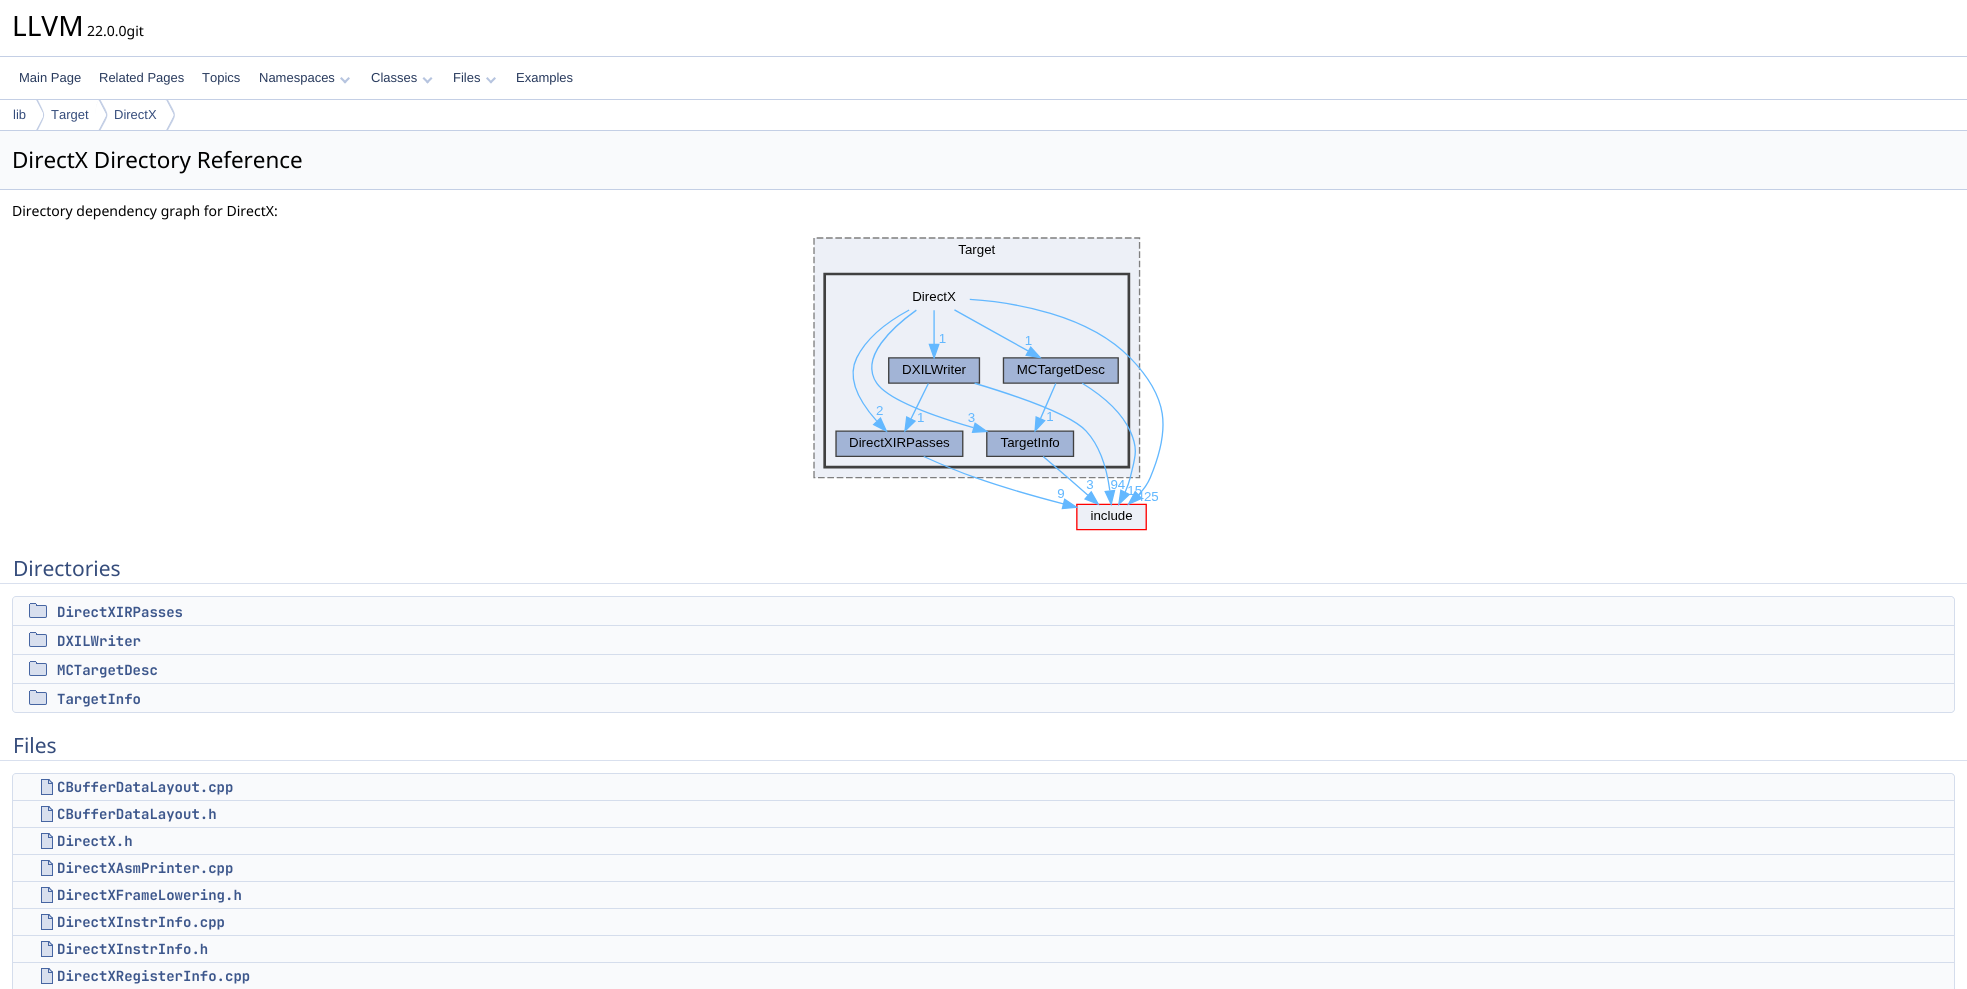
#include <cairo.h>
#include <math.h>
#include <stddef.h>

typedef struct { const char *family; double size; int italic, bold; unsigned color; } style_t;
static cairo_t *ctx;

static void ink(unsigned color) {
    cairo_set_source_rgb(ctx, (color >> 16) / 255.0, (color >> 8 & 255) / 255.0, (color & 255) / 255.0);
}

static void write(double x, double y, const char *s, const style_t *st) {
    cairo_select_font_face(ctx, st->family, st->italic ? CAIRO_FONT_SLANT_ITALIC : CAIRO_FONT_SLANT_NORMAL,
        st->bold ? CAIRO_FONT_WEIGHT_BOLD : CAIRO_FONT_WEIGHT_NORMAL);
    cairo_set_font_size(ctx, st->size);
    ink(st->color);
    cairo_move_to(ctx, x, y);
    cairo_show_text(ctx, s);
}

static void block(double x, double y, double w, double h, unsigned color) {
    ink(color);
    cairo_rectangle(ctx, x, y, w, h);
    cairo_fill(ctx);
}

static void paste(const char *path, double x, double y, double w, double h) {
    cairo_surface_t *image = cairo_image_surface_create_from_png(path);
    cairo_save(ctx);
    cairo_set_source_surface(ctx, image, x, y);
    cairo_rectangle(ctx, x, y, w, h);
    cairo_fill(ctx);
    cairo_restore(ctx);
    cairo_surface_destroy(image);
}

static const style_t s1 = {"Noto Sans", 28, 0, 0, 0x000000};
static const style_t s2 = {"Noto Sans", 14, 0, 0, 0x000000};
static const style_t s3 = {"Liberation Sans", 13, 0, 0, 0x283a5d};
static const style_t s4 = {"Liberation Sans", 13, 0, 0, 0x354c7b};
static const style_t s5 = {"Noto Sans", 22.4, 0, 0, 0x000000};
static const style_t s6 = {"Noto Sans", 21, 0, 0, 0x354c7b};
static const style_t s7 = {"JetBrains Mono", 14, 0, 1, 0x3d578c};

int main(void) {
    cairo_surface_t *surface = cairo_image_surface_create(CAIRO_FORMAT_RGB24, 1967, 989);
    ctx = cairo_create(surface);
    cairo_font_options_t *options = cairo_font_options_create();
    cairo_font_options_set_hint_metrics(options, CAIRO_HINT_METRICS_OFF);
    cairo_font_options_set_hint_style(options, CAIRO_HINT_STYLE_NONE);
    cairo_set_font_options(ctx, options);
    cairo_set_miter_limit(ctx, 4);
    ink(0xffffff);
    cairo_paint(ctx);
    block(0, 56, 1967, 1, 0xc4cfe5);
    write(12, 36, "LLVM", &s1);
    write(87, 36, "22.0.0git", &s2);
    block(0, 99, 1967, 1, 0xc4cfe5);
    write(19, 82, "Main Page", &s3);
    write(99, 82, "Related Pages", &s3);
    write(202, 82, "Topics", &s3);
    write(259, 82, "Namespaces", &s3);
    ink(0xb6c4df);
    cairo_new_path(ctx);
    cairo_move_to(ctx, 348.5, 77);
    cairo_line_to(ctx, 350, 78.5);
    cairo_line_to(ctx, 345, 83.5);
    cairo_line_to(ctx, 343.5, 82);
    cairo_close_path(ctx);
    cairo_fill(ctx);
    cairo_new_path(ctx);
    cairo_move_to(ctx, 341.5, 77);
    cairo_line_to(ctx, 346.5, 82);
    cairo_line_to(ctx, 345, 83.5);
    cairo_line_to(ctx, 340, 78.5);
    cairo_close_path(ctx);
    cairo_fill(ctx);
    write(371, 82, "Classes", &s3);
    ink(0xb6c4df);
    cairo_new_path(ctx);
    cairo_move_to(ctx, 431, 77);
    cairo_line_to(ctx, 432.5, 78.5);
    cairo_line_to(ctx, 427.5, 83.5);
    cairo_line_to(ctx, 426, 82);
    cairo_close_path(ctx);
    cairo_fill(ctx);
    cairo_new_path(ctx);
    cairo_move_to(ctx, 424, 77);
    cairo_line_to(ctx, 429, 82);
    cairo_line_to(ctx, 427.5, 83.5);
    cairo_line_to(ctx, 422.5, 78.5);
    cairo_close_path(ctx);
    cairo_fill(ctx);
    write(453, 82, "Files", &s3);
    ink(0xb6c4df);
    cairo_new_path(ctx);
    cairo_move_to(ctx, 494.5, 77);
    cairo_line_to(ctx, 496, 78.5);
    cairo_line_to(ctx, 491, 83.5);
    cairo_line_to(ctx, 489.5, 82);
    cairo_close_path(ctx);
    cairo_fill(ctx);
    cairo_new_path(ctx);
    cairo_move_to(ctx, 487.5, 77);
    cairo_line_to(ctx, 492, 82);
    cairo_line_to(ctx, 491, 83.5);
    cairo_line_to(ctx, 486, 78.5);
    cairo_close_path(ctx);
    cairo_fill(ctx);
    write(516, 82, "Examples", &s3);
    block(0, 130, 1967, 1, 0xc4cfe5);
    write(13, 119, "lib", &s4);
    cairo_save(ctx);
    cairo_rectangle(ctx, 0, 100, 1967, 30);
    cairo_clip(ctx);
    ink(0xc4cfe5);
    cairo_new_path(ctx);
    cairo_move_to(ctx, 37, 98);
    cairo_line_to(ctx, 36, 100);
    cairo_line_to(ctx, 43, 113.5);
    cairo_curve_to(ctx, 43, 114.5, 43, 115.5, 43, 116.5);
    cairo_line_to(ctx, 36, 130);
    cairo_line_to(ctx, 37, 132);
    cairo_curve_to(ctx, 46.5, 112, 46.5, 118, 37, 98);
    cairo_close_path(ctx);
    cairo_fill(ctx);
    cairo_restore(ctx);
    ink(0xffffff);
    cairo_new_path(ctx);
    cairo_move_to(ctx, 36, 100);
    cairo_line_to(ctx, 43, 113.5);
    cairo_curve_to(ctx, 43, 114.5, 43, 115.5, 43, 116.5);
    cairo_line_to(ctx, 36, 130);
    cairo_curve_to(ctx, 32, 121.5, 32, 108.5, 36, 100);
    cairo_close_path(ctx);
    cairo_fill(ctx);
    write(51, 119, "Target", &s4);
    cairo_save(ctx);
    cairo_rectangle(ctx, 0, 100, 1967, 30);
    cairo_clip(ctx);
    ink(0xc4cfe5);
    cairo_new_path(ctx);
    cairo_move_to(ctx, 99.5, 98);
    cairo_curve_to(ctx, 97, 103, 95.5, 108.5, 95.5, 114.5);
    cairo_curve_to(ctx, 95.5, 109, 96.5, 104, 98.5, 100);
    cairo_line_to(ctx, 105.5, 113.5);
    cairo_curve_to(ctx, 106, 114.5, 106, 115.5, 105.5, 116.5);
    cairo_line_to(ctx, 98.5, 130);
    cairo_line_to(ctx, 98.5, 129.5);
    cairo_line_to(ctx, 99.5, 132);
    cairo_curve_to(ctx, 110, 112, 110, 118, 99.5, 98);
    cairo_close_path(ctx);
    cairo_fill(ctx);
    cairo_restore(ctx);
    ink(0xffffff);
    cairo_new_path(ctx);
    cairo_move_to(ctx, 98.5, 100);
    cairo_line_to(ctx, 105.5, 113.5);
    cairo_curve_to(ctx, 106, 114.5, 106, 115.5, 105.5, 116.5);
    cairo_line_to(ctx, 98.5, 130);
    cairo_curve_to(ctx, 94.5, 121.5, 94.5, 108.5, 98.5, 100);
    cairo_close_path(ctx);
    cairo_fill(ctx);
    write(114, 119, "DirectX", &s4);
    cairo_save(ctx);
    cairo_rectangle(ctx, 0, 100, 1967, 30);
    cairo_clip(ctx);
    ink(0xc4cfe5);
    cairo_new_path(ctx);
    cairo_move_to(ctx, 167, 98);
    cairo_line_to(ctx, 165.5, 102);
    cairo_line_to(ctx, 166, 100);
    cairo_line_to(ctx, 173, 113.5);
    cairo_curve_to(ctx, 173.5, 114.5, 173.5, 115.5, 173, 116.5);
    cairo_line_to(ctx, 166, 130);
    cairo_line_to(ctx, 166, 129.5);
    cairo_line_to(ctx, 167, 132);
    cairo_curve_to(ctx, 177.5, 112, 177.5, 118, 167, 98);
    cairo_close_path(ctx);
    cairo_fill(ctx);
    cairo_restore(ctx);
    ink(0xffffff);
    cairo_new_path(ctx);
    cairo_move_to(ctx, 166, 100);
    cairo_line_to(ctx, 173, 113.5);
    cairo_curve_to(ctx, 173.5, 114.5, 173.5, 115.5, 173, 116.5);
    cairo_line_to(ctx, 166, 130);
    cairo_curve_to(ctx, 162, 121.5, 162, 108.5, 166, 100);
    cairo_close_path(ctx);
    cairo_fill(ctx);
    block(0, 131, 1967, 58, 0xf9fafc);
    block(0, 189, 1967, 1, 0xc4cfe5);
    write(12, 168, "DirectX Directory Reference", &s5);
    write(12, 216, "Directory dependency graph for DirectX:", &s2);
    paste("pic1.png", 813, 237, 351, 294);
    ink(0xd9e0ee);
    cairo_new_path(ctx);
    cairo_move_to(ctx, 0, 550);
    cairo_line_to(ctx, 0, 584);
    cairo_line_to(ctx, 1941, 584);
    cairo_line_to(ctx, 1941, 583);
    cairo_line_to(ctx, 13, 583);
    cairo_line_to(ctx, 13, 550);
    cairo_close_path(ctx);
    cairo_fill(ctx);
    cairo_new_path(ctx);
    cairo_move_to(ctx, 26, 583);
    cairo_line_to(ctx, 26, 584);
    cairo_line_to(ctx, 1967, 584);
    cairo_line_to(ctx, 1967, 550);
    cairo_line_to(ctx, 1954, 550);
    cairo_line_to(ctx, 1954, 583);
    cairo_close_path(ctx);
    cairo_fill(ctx);
    block(0, 550, 13, 33, 0xffffff);
    block(1954, 550, 13, 33, 0xffffff);
    write(13, 576, "Directories", &s6);
    ink(0xf9fafc);
    cairo_new_path(ctx);
    cairo_move_to(ctx, 16, 596);
    cairo_line_to(ctx, 56, 596);
    cairo_line_to(ctx, 56, 626);
    cairo_line_to(ctx, 12, 626);
    cairo_line_to(ctx, 12, 600);
    cairo_curve_to(ctx, 12, 598, 14, 596, 16, 596);
    cairo_close_path(ctx);
    cairo_fill(ctx);
    ink(0xd5ddec);
    cairo_set_fill_rule(ctx, CAIRO_FILL_RULE_EVEN_ODD);
    cairo_new_path(ctx);
    cairo_move_to(ctx, 16, 596);
    cairo_line_to(ctx, 56, 596);
    cairo_line_to(ctx, 56, 626);
    cairo_line_to(ctx, 12, 626);
    cairo_line_to(ctx, 12, 600);
    cairo_curve_to(ctx, 12, 598, 14, 596, 16, 596);
    cairo_close_path(ctx);
    cairo_move_to(ctx, 16, 597);
    cairo_line_to(ctx, 56, 597);
    cairo_line_to(ctx, 56, 625);
    cairo_line_to(ctx, 13, 625);
    cairo_line_to(ctx, 13, 600);
    cairo_curve_to(ctx, 13, 598, 14, 597, 16, 597);
    cairo_close_path(ctx);
    cairo_fill(ctx);
    ink(0xd8dfee);
    cairo_new_path(ctx);
    cairo_move_to(ctx, 29.5, 605.5);
    cairo_line_to(ctx, 45, 605.5);
    cairo_curve_to(ctx, 46, 605.5, 46.5, 606, 46.5, 607);
    cairo_line_to(ctx, 46.5, 616);
    cairo_curve_to(ctx, 46.5, 617, 46, 617.5, 45, 617.5);
    cairo_line_to(ctx, 31, 617.5);
    cairo_curve_to(ctx, 30, 617.5, 29.5, 617, 29.5, 616);
    cairo_close_path(ctx);
    cairo_fill_preserve(ctx);
    ink(0x4665a2);
    cairo_set_line_width(ctx, 1);
    cairo_stroke(ctx);
    ink(0xd8dfee);
    cairo_new_path(ctx);
    cairo_move_to(ctx, 31, 603);
    cairo_line_to(ctx, 35, 603);
    cairo_curve_to(ctx, 36, 603, 37, 604, 37, 605);
    cairo_line_to(ctx, 37, 606);
    cairo_line_to(ctx, 29, 606);
    cairo_line_to(ctx, 29, 605);
    cairo_curve_to(ctx, 29, 604, 30, 603, 31, 603);
    cairo_close_path(ctx);
    cairo_fill(ctx);
    block(30, 603, 6, 1, 0x4665a2);
    block(36, 604, 1, 2, 0x4665a2);
    block(29, 604, 1, 2, 0x4665a2);
    ink(0xf9fafc);
    cairo_new_path(ctx);
    cairo_move_to(ctx, 56, 596);
    cairo_line_to(ctx, 1951, 596);
    cairo_curve_to(ctx, 1953, 596, 1955, 598, 1955, 600);
    cairo_line_to(ctx, 1955, 626);
    cairo_line_to(ctx, 56, 626);
    cairo_close_path(ctx);
    cairo_fill(ctx);
    ink(0xd5ddec);
    cairo_new_path(ctx);
    cairo_move_to(ctx, 56, 596);
    cairo_line_to(ctx, 1951, 596);
    cairo_curve_to(ctx, 1953, 596, 1955, 598, 1955, 600);
    cairo_line_to(ctx, 1955, 626);
    cairo_line_to(ctx, 56, 626);
    cairo_close_path(ctx);
    cairo_move_to(ctx, 56, 597);
    cairo_line_to(ctx, 1952, 597);
    cairo_line_to(ctx, 1954, 599);
    cairo_line_to(ctx, 1954, 625);
    cairo_line_to(ctx, 56, 625);
    cairo_close_path(ctx);
    cairo_fill(ctx);
    write(57, 617, "DirectXIRPasses", &s7);
    block(13, 626, 1941, 28, 0xf9fafc);
    block(12, 654, 44, 1, 0xd5ddec);
    block(12, 626, 1, 29, 0xd5ddec);
    ink(0xd8dfee);
    cairo_new_path(ctx);
    cairo_move_to(ctx, 29.5, 634.5);
    cairo_line_to(ctx, 45, 634.5);
    cairo_curve_to(ctx, 46, 634.5, 46.5, 635, 46.5, 636);
    cairo_line_to(ctx, 46.5, 645);
    cairo_curve_to(ctx, 46.5, 646, 46, 646.5, 45, 646.5);
    cairo_line_to(ctx, 31, 646.5);
    cairo_curve_to(ctx, 30, 646.5, 29.5, 646, 29.5, 645);
    cairo_close_path(ctx);
    cairo_fill_preserve(ctx);
    ink(0x4665a2);
    cairo_stroke(ctx);
    ink(0xd8dfee);
    cairo_new_path(ctx);
    cairo_move_to(ctx, 31, 632);
    cairo_line_to(ctx, 35, 632);
    cairo_curve_to(ctx, 36, 632, 37, 633, 37, 634);
    cairo_line_to(ctx, 37, 635);
    cairo_line_to(ctx, 29, 635);
    cairo_line_to(ctx, 29, 634);
    cairo_curve_to(ctx, 29, 633, 30, 632, 31, 632);
    cairo_close_path(ctx);
    cairo_fill(ctx);
    block(30, 632, 6, 1, 0x4665a2);
    block(36, 633, 1, 2, 0x4665a2);
    block(29, 633, 1, 2, 0x4665a2);
    block(1954, 626, 1, 58, 0xd5ddec);
    block(56, 654, 1899, 1, 0xd5ddec);
    write(57, 646, "DXILWriter", &s7);
    block(13, 655, 1941, 28, 0xf9fafc);
    block(12, 683, 1943, 1, 0xd5ddec);
    block(12, 655, 1, 29, 0xd5ddec);
    ink(0xd8dfee);
    cairo_new_path(ctx);
    cairo_move_to(ctx, 29.5, 663.5);
    cairo_line_to(ctx, 45, 663.5);
    cairo_curve_to(ctx, 46, 663.5, 46.5, 664, 46.5, 665);
    cairo_line_to(ctx, 46.5, 674);
    cairo_curve_to(ctx, 46.5, 675, 46, 675.5, 45, 675.5);
    cairo_line_to(ctx, 31, 675.5);
    cairo_curve_to(ctx, 30, 675.5, 29.5, 675, 29.5, 674);
    cairo_close_path(ctx);
    cairo_fill_preserve(ctx);
    ink(0x4665a2);
    cairo_stroke(ctx);
    ink(0xd8dfee);
    cairo_new_path(ctx);
    cairo_move_to(ctx, 31, 661);
    cairo_line_to(ctx, 35, 661);
    cairo_curve_to(ctx, 36, 661, 37, 662, 37, 663);
    cairo_line_to(ctx, 37, 664);
    cairo_line_to(ctx, 29, 664);
    cairo_line_to(ctx, 29, 663);
    cairo_curve_to(ctx, 29, 662, 30, 661, 31, 661);
    cairo_close_path(ctx);
    cairo_fill(ctx);
    block(30, 661, 6, 1, 0x4665a2);
    block(36, 662, 1, 2, 0x4665a2);
    block(29, 662, 1, 2, 0x4665a2);
    write(57, 675, "MCTargetDesc", &s7);
    ink(0xf9fafc);
    cairo_new_path(ctx);
    cairo_move_to(ctx, 12, 684);
    cairo_line_to(ctx, 56, 684);
    cairo_line_to(ctx, 56, 713);
    cairo_line_to(ctx, 16, 713);
    cairo_curve_to(ctx, 14, 713, 12, 711, 12, 709);
    cairo_close_path(ctx);
    cairo_fill(ctx);
    ink(0xd5ddec);
    cairo_new_path(ctx);
    cairo_move_to(ctx, 12, 684);
    cairo_line_to(ctx, 56, 684);
    cairo_line_to(ctx, 56, 713);
    cairo_line_to(ctx, 16, 713);
    cairo_curve_to(ctx, 14, 713, 12, 711, 12, 709);
    cairo_close_path(ctx);
    cairo_move_to(ctx, 13, 684);
    cairo_line_to(ctx, 56, 684);
    cairo_line_to(ctx, 56, 712);
    cairo_line_to(ctx, 16, 712);
    cairo_curve_to(ctx, 14, 712, 13, 711, 13, 709);
    cairo_close_path(ctx);
    cairo_fill(ctx);
    ink(0xd8dfee);
    cairo_new_path(ctx);
    cairo_move_to(ctx, 29.5, 692.5);
    cairo_line_to(ctx, 45, 692.5);
    cairo_curve_to(ctx, 46, 692.5, 46.5, 693, 46.5, 694);
    cairo_line_to(ctx, 46.5, 703);
    cairo_curve_to(ctx, 46.5, 704, 46, 704.5, 45, 704.5);
    cairo_line_to(ctx, 31, 704.5);
    cairo_curve_to(ctx, 30, 704.5, 29.5, 704, 29.5, 703);
    cairo_close_path(ctx);
    cairo_fill_preserve(ctx);
    ink(0x4665a2);
    cairo_stroke(ctx);
    ink(0xd8dfee);
    cairo_new_path(ctx);
    cairo_move_to(ctx, 31, 690);
    cairo_line_to(ctx, 35, 690);
    cairo_curve_to(ctx, 36, 690, 37, 691, 37, 692);
    cairo_line_to(ctx, 37, 693);
    cairo_line_to(ctx, 29, 693);
    cairo_line_to(ctx, 29, 692);
    cairo_curve_to(ctx, 29, 691, 30, 690, 31, 690);
    cairo_close_path(ctx);
    cairo_fill(ctx);
    block(30, 690, 6, 1, 0x4665a2);
    block(36, 691, 1, 2, 0x4665a2);
    block(29, 691, 1, 2, 0x4665a2);
    ink(0xf9fafc);
    cairo_new_path(ctx);
    cairo_move_to(ctx, 56, 684);
    cairo_line_to(ctx, 1955, 684);
    cairo_line_to(ctx, 1955, 709);
    cairo_curve_to(ctx, 1955, 711, 1953, 713, 1951, 713);
    cairo_line_to(ctx, 56, 713);
    cairo_close_path(ctx);
    cairo_fill(ctx);
    ink(0xd5ddec);
    cairo_new_path(ctx);
    cairo_move_to(ctx, 56, 684);
    cairo_line_to(ctx, 1955, 684);
    cairo_line_to(ctx, 1955, 709);
    cairo_curve_to(ctx, 1955, 711, 1953, 713, 1951, 713);
    cairo_line_to(ctx, 56, 713);
    cairo_close_path(ctx);
    cairo_move_to(ctx, 56, 684);
    cairo_line_to(ctx, 1954, 684);
    cairo_line_to(ctx, 1954, 710);
    cairo_line_to(ctx, 1952, 712);
    cairo_line_to(ctx, 56, 712);
    cairo_close_path(ctx);
    cairo_fill(ctx);
    write(57, 704, "TargetInfo", &s7);
    ink(0xd9e0ee);
    cairo_set_fill_rule(ctx, CAIRO_FILL_RULE_WINDING);
    cairo_new_path(ctx);
    cairo_move_to(ctx, 0, 727);
    cairo_line_to(ctx, 0, 761);
    cairo_line_to(ctx, 1941, 761);
    cairo_line_to(ctx, 1941, 760);
    cairo_line_to(ctx, 13, 760);
    cairo_line_to(ctx, 13, 727);
    cairo_close_path(ctx);
    cairo_fill(ctx);
    cairo_new_path(ctx);
    cairo_move_to(ctx, 26, 760);
    cairo_line_to(ctx, 26, 761);
    cairo_line_to(ctx, 1967, 761);
    cairo_line_to(ctx, 1967, 727);
    cairo_line_to(ctx, 1954, 727);
    cairo_line_to(ctx, 1954, 760);
    cairo_close_path(ctx);
    cairo_fill(ctx);
    block(0, 727, 13, 33, 0xffffff);
    block(1954, 727, 13, 33, 0xffffff);
    write(13, 753, "Files", &s6);
    ink(0xf9fafc);
    cairo_new_path(ctx);
    cairo_move_to(ctx, 16, 773);
    cairo_line_to(ctx, 56, 773);
    cairo_line_to(ctx, 56, 801);
    cairo_line_to(ctx, 12, 801);
    cairo_line_to(ctx, 12, 777);
    cairo_curve_to(ctx, 12, 775, 14, 773, 16, 773);
    cairo_close_path(ctx);
    cairo_fill(ctx);
    ink(0xd5ddec);
    cairo_set_fill_rule(ctx, CAIRO_FILL_RULE_EVEN_ODD);
    cairo_new_path(ctx);
    cairo_move_to(ctx, 16, 773);
    cairo_line_to(ctx, 56, 773);
    cairo_line_to(ctx, 56, 801);
    cairo_line_to(ctx, 12, 801);
    cairo_line_to(ctx, 12, 777);
    cairo_curve_to(ctx, 12, 775, 14, 773, 16, 773);
    cairo_close_path(ctx);
    cairo_move_to(ctx, 16, 774);
    cairo_line_to(ctx, 56, 774);
    cairo_line_to(ctx, 56, 800);
    cairo_line_to(ctx, 13, 800);
    cairo_line_to(ctx, 13, 777);
    cairo_curve_to(ctx, 13, 775, 14, 774, 16, 774);
    cairo_close_path(ctx);
    cairo_fill(ctx);
    ink(0x4665a2);
    cairo_set_fill_rule(ctx, CAIRO_FILL_RULE_WINDING);
    cairo_new_path(ctx);
    cairo_move_to(ctx, 41, 779);
    cairo_line_to(ctx, 41, 795);
    cairo_line_to(ctx, 53, 795);
    cairo_line_to(ctx, 53, 783);
    cairo_line_to(ctx, 49, 779);
    cairo_close_path(ctx);
    cairo_fill(ctx);
    ink(0xd8dfee);
    cairo_new_path(ctx);
    cairo_move_to(ctx, 42, 780);
    cairo_line_to(ctx, 42, 794);
    cairo_line_to(ctx, 52, 794);
    cairo_line_to(ctx, 52, 783.5);
    cairo_line_to(ctx, 48.5, 780);
    cairo_close_path(ctx);
    cairo_fill(ctx);
    block(13, 801, 1941, 26, 0xf9fafc);
    ink(0x4665a2);
    cairo_new_path(ctx);
    cairo_move_to(ctx, 48, 779);
    cairo_line_to(ctx, 48, 784);
    cairo_line_to(ctx, 53, 784);
    cairo_line_to(ctx, 53, 783);
    cairo_line_to(ctx, 52, 782);
    cairo_line_to(ctx, 52, 783);
    cairo_line_to(ctx, 49, 783);
    cairo_line_to(ctx, 49, 780);
    cairo_line_to(ctx, 50, 780);
    cairo_line_to(ctx, 49, 779);
    cairo_close_path(ctx);
    cairo_move_to(ctx, 41, 806);
    cairo_line_to(ctx, 41, 822);
    cairo_line_to(ctx, 53, 822);
    cairo_line_to(ctx, 53, 810);
    cairo_line_to(ctx, 49, 806);
    cairo_close_path(ctx);
    cairo_fill(ctx);
    ink(0xf9fafc);
    cairo_new_path(ctx);
    cairo_move_to(ctx, 56, 773);
    cairo_line_to(ctx, 1951, 773);
    cairo_curve_to(ctx, 1953, 773, 1955, 775, 1955, 777);
    cairo_line_to(ctx, 1955, 801);
    cairo_line_to(ctx, 56, 801);
    cairo_close_path(ctx);
    cairo_fill(ctx);
    ink(0xd5ddec);
    cairo_set_fill_rule(ctx, CAIRO_FILL_RULE_EVEN_ODD);
    cairo_new_path(ctx);
    cairo_move_to(ctx, 56, 773);
    cairo_line_to(ctx, 1951, 773);
    cairo_curve_to(ctx, 1953, 773, 1955, 775, 1955, 777);
    cairo_line_to(ctx, 1955, 801);
    cairo_line_to(ctx, 56, 801);
    cairo_close_path(ctx);
    cairo_move_to(ctx, 56, 774);
    cairo_line_to(ctx, 1952, 774);
    cairo_line_to(ctx, 1954, 776);
    cairo_line_to(ctx, 1954, 800);
    cairo_line_to(ctx, 56, 800);
    cairo_close_path(ctx);
    cairo_fill(ctx);
    write(57, 792, "CBufferDataLayout.cpp", &s7);
    block(12, 827, 44, 1, 0xd5ddec);
    block(12, 801, 1, 27, 0xd5ddec);
    ink(0xd8dfee);
    cairo_set_fill_rule(ctx, CAIRO_FILL_RULE_WINDING);
    cairo_new_path(ctx);
    cairo_move_to(ctx, 42, 807);
    cairo_line_to(ctx, 42, 821);
    cairo_line_to(ctx, 52, 821);
    cairo_line_to(ctx, 52, 810.5);
    cairo_line_to(ctx, 48.5, 807);
    cairo_close_path(ctx);
    cairo_fill(ctx);
    block(13, 828, 1941, 26, 0xf9fafc);
    ink(0x4665a2);
    cairo_new_path(ctx);
    cairo_move_to(ctx, 48, 806);
    cairo_line_to(ctx, 48, 811);
    cairo_line_to(ctx, 53, 811);
    cairo_line_to(ctx, 53, 810);
    cairo_line_to(ctx, 52, 809);
    cairo_line_to(ctx, 52, 810);
    cairo_line_to(ctx, 49, 810);
    cairo_line_to(ctx, 49, 807);
    cairo_line_to(ctx, 50, 807);
    cairo_line_to(ctx, 49, 806);
    cairo_close_path(ctx);
    cairo_move_to(ctx, 41, 833);
    cairo_line_to(ctx, 41, 849);
    cairo_line_to(ctx, 53, 849);
    cairo_line_to(ctx, 53, 837);
    cairo_line_to(ctx, 49, 833);
    cairo_close_path(ctx);
    cairo_fill(ctx);
    block(1954, 801, 1, 188, 0xd5ddec);
    block(56, 827, 1899, 1, 0xd5ddec);
    write(57, 819, "CBufferDataLayout.h", &s7);
    block(12, 854, 1943, 1, 0xd5ddec);
    block(12, 828, 1, 27, 0xd5ddec);
    ink(0xd8dfee);
    cairo_new_path(ctx);
    cairo_move_to(ctx, 42, 834);
    cairo_line_to(ctx, 42, 848);
    cairo_line_to(ctx, 52, 848);
    cairo_line_to(ctx, 52, 837.5);
    cairo_line_to(ctx, 48.5, 834);
    cairo_close_path(ctx);
    cairo_fill(ctx);
    block(13, 855, 1941, 26, 0xf9fafc);
    ink(0x4665a2);
    cairo_new_path(ctx);
    cairo_move_to(ctx, 48, 833);
    cairo_line_to(ctx, 48, 838);
    cairo_line_to(ctx, 53, 838);
    cairo_line_to(ctx, 53, 837);
    cairo_line_to(ctx, 52, 836);
    cairo_line_to(ctx, 52, 837);
    cairo_line_to(ctx, 49, 837);
    cairo_line_to(ctx, 49, 834);
    cairo_line_to(ctx, 50, 834);
    cairo_line_to(ctx, 49, 833);
    cairo_close_path(ctx);
    cairo_move_to(ctx, 41, 860);
    cairo_line_to(ctx, 41, 876);
    cairo_line_to(ctx, 53, 876);
    cairo_line_to(ctx, 53, 864);
    cairo_line_to(ctx, 49, 860);
    cairo_close_path(ctx);
    cairo_fill(ctx);
    write(57, 846, "DirectX.h", &s7);
    block(12, 881, 1943, 1, 0xd5ddec);
    block(12, 855, 1, 27, 0xd5ddec);
    ink(0xd8dfee);
    cairo_new_path(ctx);
    cairo_move_to(ctx, 42, 861);
    cairo_line_to(ctx, 42, 875);
    cairo_line_to(ctx, 52, 875);
    cairo_line_to(ctx, 52, 864.5);
    cairo_line_to(ctx, 48.5, 861);
    cairo_close_path(ctx);
    cairo_fill(ctx);
    block(13, 882, 1941, 26, 0xf9fafc);
    ink(0x4665a2);
    cairo_new_path(ctx);
    cairo_move_to(ctx, 48, 860);
    cairo_line_to(ctx, 48, 865);
    cairo_line_to(ctx, 53, 865);
    cairo_line_to(ctx, 53, 864);
    cairo_line_to(ctx, 52, 863);
    cairo_line_to(ctx, 52, 864);
    cairo_line_to(ctx, 49, 864);
    cairo_line_to(ctx, 49, 861);
    cairo_line_to(ctx, 50, 861);
    cairo_line_to(ctx, 49, 860);
    cairo_close_path(ctx);
    cairo_move_to(ctx, 41, 887);
    cairo_line_to(ctx, 41, 903);
    cairo_line_to(ctx, 53, 903);
    cairo_line_to(ctx, 53, 891);
    cairo_line_to(ctx, 49, 887);
    cairo_close_path(ctx);
    cairo_fill(ctx);
    write(57, 873, "DirectXAsmPrinter.cpp", &s7);
    block(12, 908, 1943, 1, 0xd5ddec);
    block(12, 882, 1, 27, 0xd5ddec);
    ink(0xd8dfee);
    cairo_new_path(ctx);
    cairo_move_to(ctx, 42, 888);
    cairo_line_to(ctx, 42, 902);
    cairo_line_to(ctx, 52, 902);
    cairo_line_to(ctx, 52, 891.5);
    cairo_line_to(ctx, 48.5, 888);
    cairo_close_path(ctx);
    cairo_fill(ctx);
    block(13, 909, 1941, 26, 0xf9fafc);
    ink(0x4665a2);
    cairo_new_path(ctx);
    cairo_move_to(ctx, 48, 887);
    cairo_line_to(ctx, 48, 892);
    cairo_line_to(ctx, 53, 892);
    cairo_line_to(ctx, 53, 891);
    cairo_line_to(ctx, 52, 890);
    cairo_line_to(ctx, 52, 891);
    cairo_line_to(ctx, 49, 891);
    cairo_line_to(ctx, 49, 888);
    cairo_line_to(ctx, 50, 888);
    cairo_line_to(ctx, 49, 887);
    cairo_close_path(ctx);
    cairo_move_to(ctx, 41, 914);
    cairo_line_to(ctx, 41, 930);
    cairo_line_to(ctx, 53, 930);
    cairo_line_to(ctx, 53, 918);
    cairo_line_to(ctx, 49, 914);
    cairo_close_path(ctx);
    cairo_fill(ctx);
    write(57, 900, "DirectXFrameLowering.h", &s7);
    block(12, 935, 1943, 1, 0xd5ddec);
    block(12, 909, 1, 27, 0xd5ddec);
    ink(0xd8dfee);
    cairo_new_path(ctx);
    cairo_move_to(ctx, 42, 915);
    cairo_line_to(ctx, 42, 929);
    cairo_line_to(ctx, 52, 929);
    cairo_line_to(ctx, 52, 918.5);
    cairo_line_to(ctx, 48.5, 915);
    cairo_close_path(ctx);
    cairo_fill(ctx);
    block(13, 936, 1941, 26, 0xf9fafc);
    ink(0x4665a2);
    cairo_new_path(ctx);
    cairo_move_to(ctx, 48, 914);
    cairo_line_to(ctx, 48, 919);
    cairo_line_to(ctx, 53, 919);
    cairo_line_to(ctx, 53, 918);
    cairo_line_to(ctx, 52, 917);
    cairo_line_to(ctx, 52, 918);
    cairo_line_to(ctx, 49, 918);
    cairo_line_to(ctx, 49, 915);
    cairo_line_to(ctx, 50, 915);
    cairo_line_to(ctx, 49, 914);
    cairo_close_path(ctx);
    cairo_move_to(ctx, 41, 941);
    cairo_line_to(ctx, 41, 957);
    cairo_line_to(ctx, 53, 957);
    cairo_line_to(ctx, 53, 945);
    cairo_line_to(ctx, 49, 941);
    cairo_close_path(ctx);
    cairo_fill(ctx);
    write(57, 927, "DirectXInstrInfo.cpp", &s7);
    block(12, 962, 1943, 1, 0xd5ddec);
    block(12, 936, 1, 53, 0xd5ddec);
    ink(0xd8dfee);
    cairo_new_path(ctx);
    cairo_move_to(ctx, 42, 942);
    cairo_line_to(ctx, 42, 956);
    cairo_line_to(ctx, 52, 956);
    cairo_line_to(ctx, 52, 945.5);
    cairo_line_to(ctx, 48.5, 942);
    cairo_close_path(ctx);
    cairo_fill(ctx);
    block(13, 963, 1941, 26, 0xf9fafc);
    ink(0x4665a2);
    cairo_new_path(ctx);
    cairo_move_to(ctx, 48, 941);
    cairo_line_to(ctx, 48, 946);
    cairo_line_to(ctx, 53, 946);
    cairo_line_to(ctx, 53, 945);
    cairo_line_to(ctx, 52, 944);
    cairo_line_to(ctx, 52, 945);
    cairo_line_to(ctx, 49, 945);
    cairo_line_to(ctx, 49, 942);
    cairo_line_to(ctx, 50, 942);
    cairo_line_to(ctx, 49, 941);
    cairo_close_path(ctx);
    cairo_move_to(ctx, 41, 968);
    cairo_line_to(ctx, 41, 984);
    cairo_line_to(ctx, 53, 984);
    cairo_line_to(ctx, 53, 972);
    cairo_line_to(ctx, 49, 968);
    cairo_close_path(ctx);
    cairo_fill(ctx);
    write(57, 954, "DirectXInstrInfo.h", &s7);
    ink(0xd8dfee);
    cairo_new_path(ctx);
    cairo_move_to(ctx, 42, 969);
    cairo_line_to(ctx, 42, 983);
    cairo_line_to(ctx, 52, 983);
    cairo_line_to(ctx, 52, 972.5);
    cairo_line_to(ctx, 48.5, 969);
    cairo_close_path(ctx);
    cairo_fill(ctx);
    ink(0x4665a2);
    cairo_new_path(ctx);
    cairo_move_to(ctx, 48, 968);
    cairo_line_to(ctx, 48, 973);
    cairo_line_to(ctx, 53, 973);
    cairo_line_to(ctx, 53, 972);
    cairo_line_to(ctx, 52, 971);
    cairo_line_to(ctx, 52, 972);
    cairo_line_to(ctx, 49, 972);
    cairo_line_to(ctx, 49, 969);
    cairo_line_to(ctx, 50, 969);
    cairo_line_to(ctx, 49, 968);
    cairo_close_path(ctx);
    cairo_fill(ctx);
    write(57, 981, "DirectXRegisterInfo.cpp", &s7);
    cairo_surface_write_to_png(surface, "screenshot.png");
    cairo_font_options_destroy(options);
    cairo_destroy(ctx);
    cairo_surface_destroy(surface);
    return 0;
}
